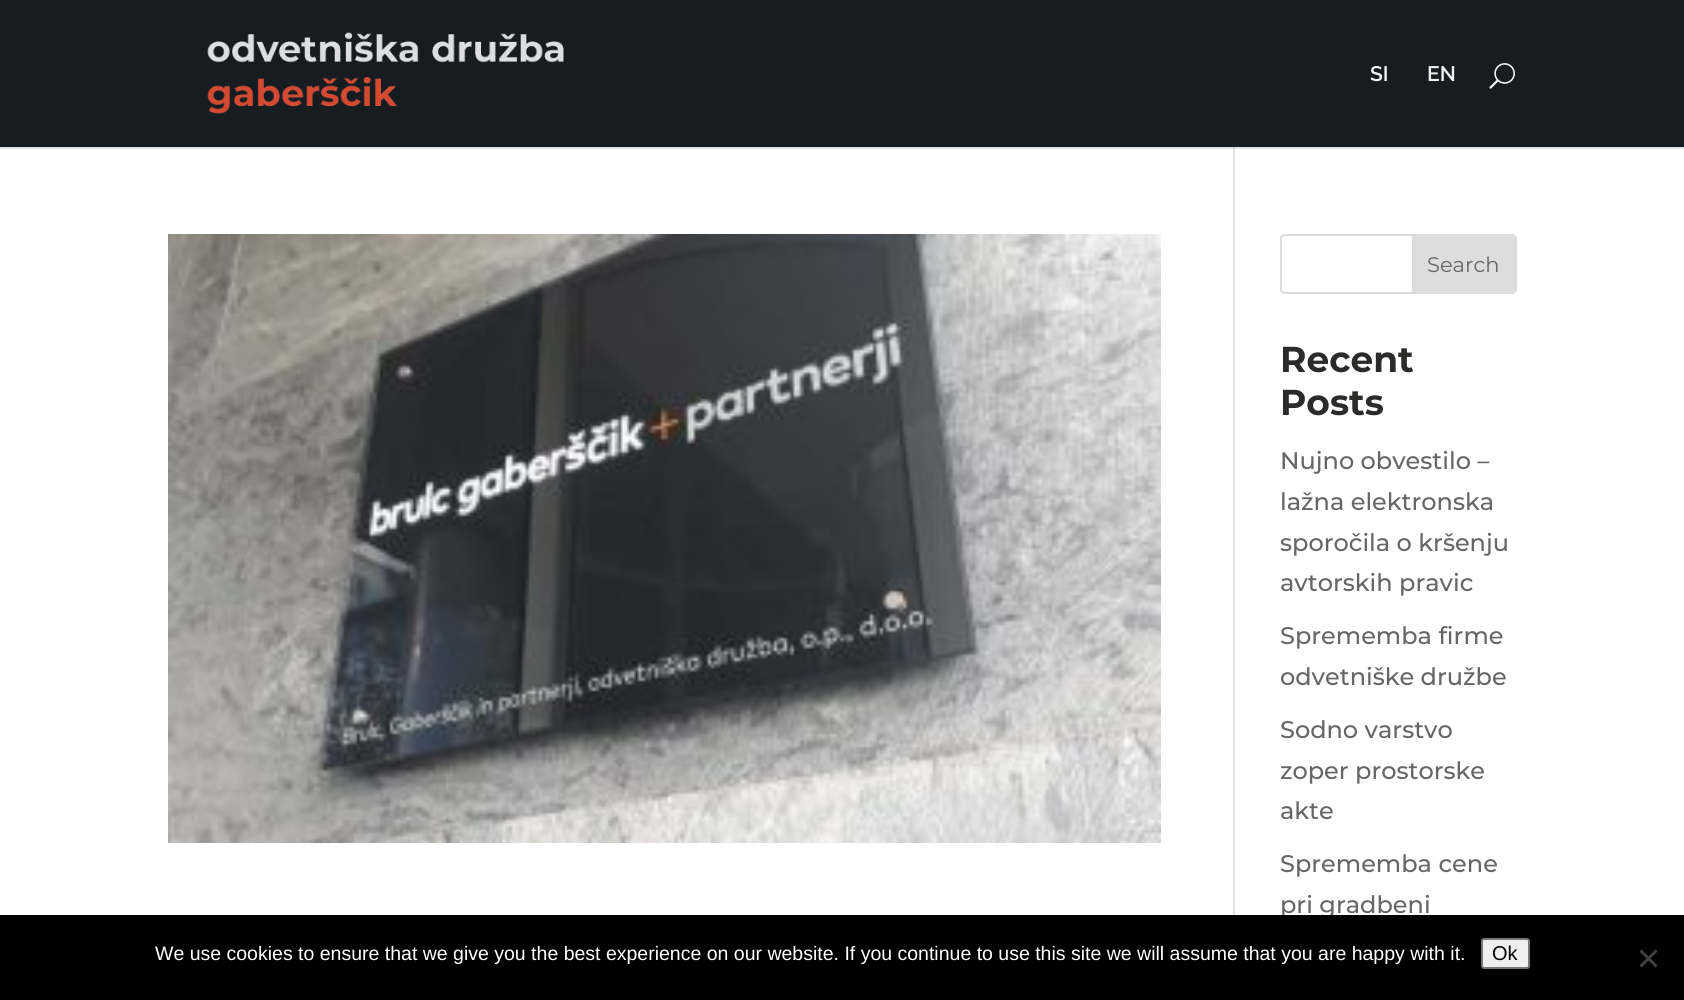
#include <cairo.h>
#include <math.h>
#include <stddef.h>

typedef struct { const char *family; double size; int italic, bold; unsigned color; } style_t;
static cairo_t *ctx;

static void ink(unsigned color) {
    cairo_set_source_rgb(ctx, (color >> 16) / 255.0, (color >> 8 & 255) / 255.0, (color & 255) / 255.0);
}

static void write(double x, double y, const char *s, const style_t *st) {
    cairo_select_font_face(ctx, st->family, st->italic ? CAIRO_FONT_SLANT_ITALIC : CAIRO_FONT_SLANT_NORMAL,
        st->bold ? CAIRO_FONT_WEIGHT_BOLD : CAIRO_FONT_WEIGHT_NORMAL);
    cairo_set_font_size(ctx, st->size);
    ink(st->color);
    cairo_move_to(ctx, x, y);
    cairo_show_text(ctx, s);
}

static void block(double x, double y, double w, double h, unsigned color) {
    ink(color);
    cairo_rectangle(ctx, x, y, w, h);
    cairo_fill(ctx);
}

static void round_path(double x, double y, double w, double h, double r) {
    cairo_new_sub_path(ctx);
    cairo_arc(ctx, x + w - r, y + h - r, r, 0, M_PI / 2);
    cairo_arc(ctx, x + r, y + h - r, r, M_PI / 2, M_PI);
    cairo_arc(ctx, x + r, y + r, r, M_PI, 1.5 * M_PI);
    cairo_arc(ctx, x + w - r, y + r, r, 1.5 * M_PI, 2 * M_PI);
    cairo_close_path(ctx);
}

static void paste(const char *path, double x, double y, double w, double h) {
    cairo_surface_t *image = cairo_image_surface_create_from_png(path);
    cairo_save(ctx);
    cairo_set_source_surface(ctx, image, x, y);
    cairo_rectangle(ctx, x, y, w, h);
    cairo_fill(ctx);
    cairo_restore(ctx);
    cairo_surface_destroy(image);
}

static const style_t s1 = {"Raleway SemiBold", 21, 0, 0, 0xf3f4f4};
static const style_t s2 = {"Montserrat", 21, 0, 0, 0x666666};
static const style_t s3 = {"Montserrat", 36, 0, 1, 0x2b2b2a};
static const style_t s4 = {"Montserrat Medium", 24, 0, 0, 0x666666};
static const style_t s5 = {"Liberation Sans", 19.5, 0, 0, 0xffffff};
static const style_t s6 = {"Liberation Sans", 20, 0, 0, 0x000000};

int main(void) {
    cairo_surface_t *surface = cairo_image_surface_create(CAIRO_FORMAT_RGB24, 1684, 1000);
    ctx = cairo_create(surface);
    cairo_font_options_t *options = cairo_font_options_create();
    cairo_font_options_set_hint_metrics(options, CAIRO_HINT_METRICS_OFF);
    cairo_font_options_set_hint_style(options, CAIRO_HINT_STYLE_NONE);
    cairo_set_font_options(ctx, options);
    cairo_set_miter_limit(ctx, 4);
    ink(0xffffff);
    cairo_paint(ctx);
    block(1233, 147, 2, 768, 0xe2e2e2);
    cairo_set_source_rgba(ctx, 0, 0, 0, 0.1);
    cairo_new_path(ctx);
    cairo_move_to(ctx, 0, 147);
    cairo_line_to(ctx, 0, 149);
    cairo_line_to(ctx, 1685, 149);
    cairo_line_to(ctx, 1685, 2);
    cairo_line_to(ctx, 1684, 2);
    cairo_line_to(ctx, 1684, 147);
    cairo_close_path(ctx);
    cairo_fill(ctx);
    block(0, 0, 1684, 147, 0x171c21);
    paste("pic1.png", 207, 32, 357, 82);
    write(1370, 81, "SI", &s1);
    write(1427, 81, "EN", &s1);
    paste("pic2.png", 1489, 63, 26, 26);
    paste("pic3.png", 168, 234, 993, 609);
    round_path(1281, 235, 235, 58, 4);
    ink(0xdddddd);
    cairo_stroke(ctx);
    cairo_new_path(ctx);
    cairo_move_to(ctx, 1413, 235);
    cairo_line_to(ctx, 1512, 235);
    cairo_curve_to(ctx, 1514, 235, 1516, 237, 1516, 239);
    cairo_line_to(ctx, 1516, 289);
    cairo_curve_to(ctx, 1516, 291, 1514, 293, 1512, 293);
    cairo_line_to(ctx, 1413, 293);
    cairo_close_path(ctx);
    cairo_fill_preserve(ctx);
    cairo_stroke(ctx);
    write(1427, 272, "Search", &s2);
    write(1280, 372, "Recent", &s3);
    write(1280, 415, "Posts", &s3);
    write(1280, 469, "Nujno obvestilo –", &s4);
    write(1280, 510, "lažna elektronska", &s4);
    write(1280, 551, "sporočila o kršenju", &s4);
    write(1280, 591, "avtorskih pravic", &s4);
    write(1280, 644, "Sprememba firme", &s4);
    write(1280, 685, "odvetniške družbe", &s4);
    write(1280, 738, "Sodno varstvo", &s4);
    write(1280, 779, "zoper prostorske", &s4);
    write(1280, 819, "akte", &s4);
    write(1280, 872, "Sprememba cene", &s4);
    write(1280, 913, "pri gradbeni", &s4);
    block(0, 915, 1684, 85, 0x000000);
    write(155, 960, "We use cookies to ensure that we give you the best experience on our website. If you continue to use this site we will assume that you are happy with it.", &s5);
    ink(0xefefef);
    round_path(1482, 939, 47, 29, 2);
    cairo_fill_preserve(ctx);
    ink(0x767676);
    cairo_stroke(ctx);
    write(1492, 960, "Ok", &s6);
    ink(0x404040);
    cairo_new_path(ctx);
    cairo_move_to(ctx, 1655.5, 949.5);
    cairo_line_to(ctx, 1657.5, 951.5);
    cairo_line_to(ctx, 1641.5, 967.5);
    cairo_line_to(ctx, 1639.5, 965.5);
    cairo_close_path(ctx);
    cairo_fill(ctx);
    cairo_new_path(ctx);
    cairo_move_to(ctx, 1639.5, 951.5);
    cairo_line_to(ctx, 1641.5, 949.5);
    cairo_line_to(ctx, 1657.5, 965.5);
    cairo_line_to(ctx, 1655.5, 967.5);
    cairo_close_path(ctx);
    cairo_fill(ctx);
    cairo_surface_write_to_png(surface, "screenshot.png");
    cairo_font_options_destroy(options);
    cairo_destroy(ctx);
    cairo_surface_destroy(surface);
    return 0;
}
